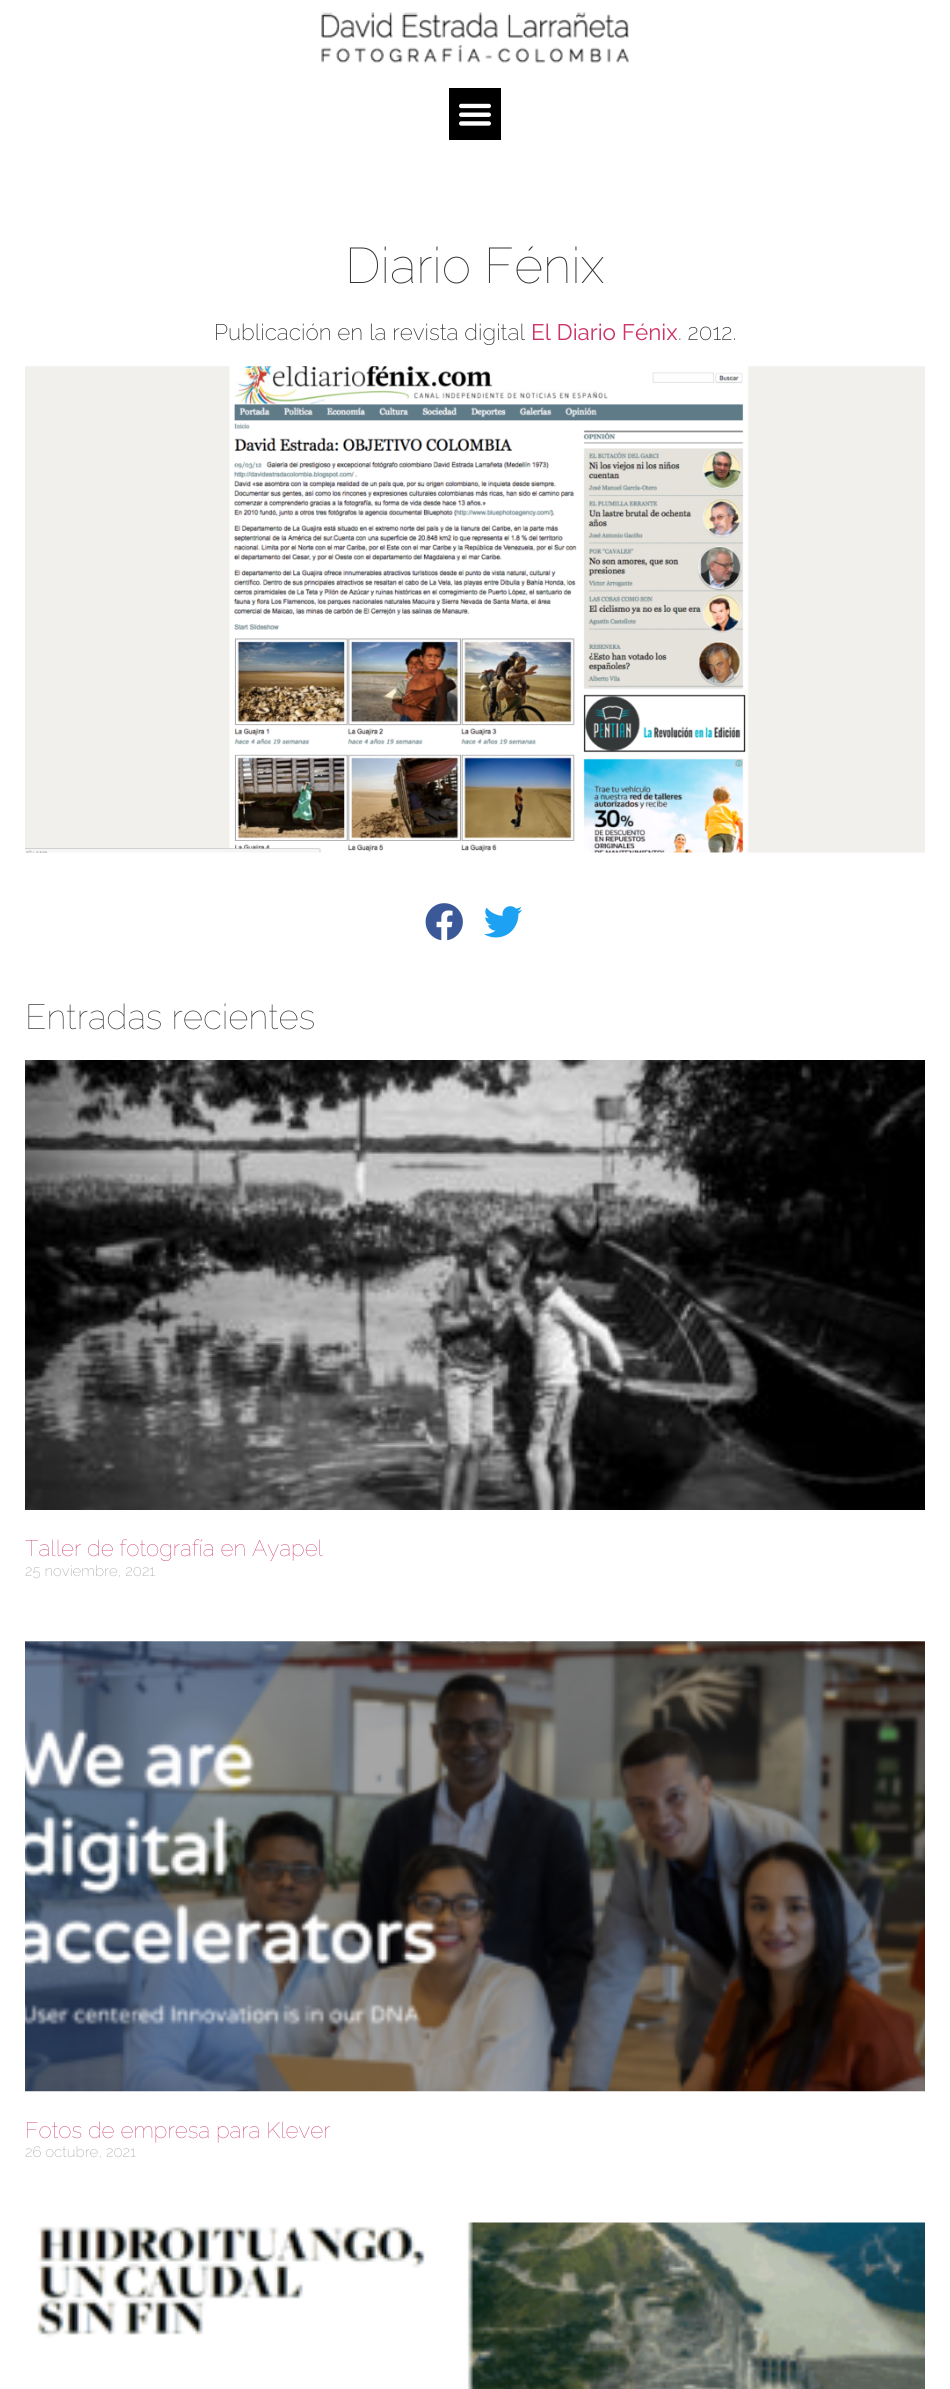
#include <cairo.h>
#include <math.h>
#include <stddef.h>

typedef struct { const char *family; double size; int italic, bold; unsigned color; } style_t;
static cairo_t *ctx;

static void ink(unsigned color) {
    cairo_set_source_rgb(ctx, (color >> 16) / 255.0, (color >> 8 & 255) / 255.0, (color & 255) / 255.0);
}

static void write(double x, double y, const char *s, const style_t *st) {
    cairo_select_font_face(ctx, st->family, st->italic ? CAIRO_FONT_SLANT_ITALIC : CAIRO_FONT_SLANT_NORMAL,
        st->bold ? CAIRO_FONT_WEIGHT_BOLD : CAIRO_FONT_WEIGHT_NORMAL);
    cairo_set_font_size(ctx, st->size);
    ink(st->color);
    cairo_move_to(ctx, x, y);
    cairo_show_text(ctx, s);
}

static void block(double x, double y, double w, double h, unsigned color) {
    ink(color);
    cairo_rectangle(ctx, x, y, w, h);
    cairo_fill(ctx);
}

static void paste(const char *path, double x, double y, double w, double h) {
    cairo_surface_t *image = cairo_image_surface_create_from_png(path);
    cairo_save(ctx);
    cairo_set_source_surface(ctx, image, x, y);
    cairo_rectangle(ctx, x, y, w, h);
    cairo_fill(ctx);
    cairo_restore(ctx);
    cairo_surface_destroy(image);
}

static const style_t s1 = {"Raleway Thin", 50, 0, 0, 0x333333};
static const style_t s2 = {"Raleway ExtraLight", 22.5, 0, 0, 0x333333};
static const style_t s3 = {"Raleway", 22.5, 0, 0, 0xcc3366};
static const style_t s4 = {"Raleway Thin", 35, 0, 0, 0x333333};
static const style_t s5 = {"Raleway Thin", 22.5, 0, 0, 0xcc3366};
static const style_t s6 = {"Raleway ExtraLight", 15, 0, 0, 0xadadad};

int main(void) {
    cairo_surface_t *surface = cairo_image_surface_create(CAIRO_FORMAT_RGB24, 950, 2389);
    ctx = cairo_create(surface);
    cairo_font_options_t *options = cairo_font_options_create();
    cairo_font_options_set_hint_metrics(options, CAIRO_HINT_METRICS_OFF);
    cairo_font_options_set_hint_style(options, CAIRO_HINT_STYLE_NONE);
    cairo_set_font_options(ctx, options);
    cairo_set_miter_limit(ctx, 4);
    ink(0xffffff);
    cairo_paint(ctx);
    paste("pic1.png", 321, 12, 308, 51);
    block(449, 88, 52, 52, 0x000000);
    paste("pic2.png", 459, 103, 32, 23);
    write(345, 283, "Diario Fénix", &s1);
    write(214, 340, "Publicación en la revista digital", &s2);
    write(531, 340, "El Diario Fénix", &s3);
    write(678, 340, ". 2012.", &s2);
    paste("pic3.png", 25, 366, 900, 487);
    paste("pic4.png", 425, 903, 38, 38);
    paste("pic5.png", 484, 906, 38, 32);
    write(25, 1029, "Entradas recientes", &s4);
    paste("pic6.png", 25, 1060, 900, 450);
    write(25, 1556, "Taller de fotografía en Ayapel", &s5);
    write(25, 1576, "25 noviembre, 2021", &s6);
    paste("pic7.png", 25, 1641, 900, 451);
    write(25, 2138, "Fotos de empresa para Klever", &s5);
    write(25, 2157, "26 octubre, 2021", &s6);
    paste("pic8.png", 37, 2222, 888, 167);
    cairo_surface_write_to_png(surface, "screenshot.png");
    cairo_font_options_destroy(options);
    cairo_destroy(ctx);
    cairo_surface_destroy(surface);
    return 0;
}
